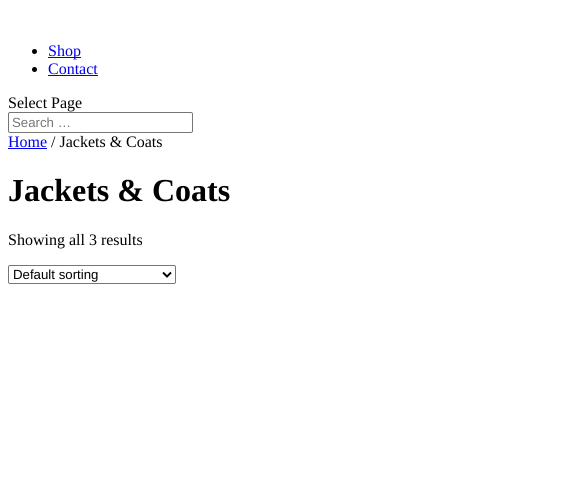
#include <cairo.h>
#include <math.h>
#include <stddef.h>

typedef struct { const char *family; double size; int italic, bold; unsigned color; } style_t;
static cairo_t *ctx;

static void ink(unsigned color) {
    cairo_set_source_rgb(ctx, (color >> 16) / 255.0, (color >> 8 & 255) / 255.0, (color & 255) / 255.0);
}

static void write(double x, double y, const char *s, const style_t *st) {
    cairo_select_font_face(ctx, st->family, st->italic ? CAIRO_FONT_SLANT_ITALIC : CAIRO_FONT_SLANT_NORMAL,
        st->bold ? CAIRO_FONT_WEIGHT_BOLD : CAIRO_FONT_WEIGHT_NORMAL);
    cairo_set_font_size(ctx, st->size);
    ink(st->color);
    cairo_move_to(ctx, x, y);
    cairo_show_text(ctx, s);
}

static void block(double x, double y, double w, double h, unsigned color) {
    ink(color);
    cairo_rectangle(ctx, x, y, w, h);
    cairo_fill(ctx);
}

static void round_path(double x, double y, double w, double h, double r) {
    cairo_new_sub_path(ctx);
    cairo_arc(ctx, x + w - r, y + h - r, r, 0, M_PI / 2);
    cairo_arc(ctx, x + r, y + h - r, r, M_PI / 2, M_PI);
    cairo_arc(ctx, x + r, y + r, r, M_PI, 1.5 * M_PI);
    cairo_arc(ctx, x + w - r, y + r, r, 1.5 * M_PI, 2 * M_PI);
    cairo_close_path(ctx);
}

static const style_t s1 = {"Liberation Serif", 16, 0, 0, 0x0000ee};
static const style_t s2 = {"Liberation Serif", 16, 0, 0, 0x000000};
static const style_t s3 = {"Liberation Sans", 13.25, 0, 0, 0x757575};
static const style_t s4 = {"Liberation Serif", 32, 0, 1, 0x000000};
static const style_t s5 = {"Liberation Sans", 13.25, 0, 0, 0x000000};

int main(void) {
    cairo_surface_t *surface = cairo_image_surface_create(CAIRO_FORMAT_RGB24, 583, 491);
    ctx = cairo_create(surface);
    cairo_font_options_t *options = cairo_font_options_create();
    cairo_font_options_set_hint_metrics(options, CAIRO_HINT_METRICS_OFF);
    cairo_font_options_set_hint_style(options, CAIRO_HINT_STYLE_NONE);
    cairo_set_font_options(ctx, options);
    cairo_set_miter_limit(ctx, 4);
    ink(0xffffff);
    cairo_paint(ctx);
    ink(0x000000);
    cairo_arc(ctx, 34.5, 51.5, 2.5, 0, 2 * M_PI);
    cairo_fill(ctx);
    block(48, 57, 33, 1, 0x0000ee);
    write(48, 56, "Shop", &s1);
    ink(0x000000);
    cairo_new_path(ctx);
    cairo_arc(ctx, 34.5, 69.5, 2.5, 0, 2 * M_PI);
    cairo_fill(ctx);
    write(48, 74, "Contact", &s1);
    block(48, 75, 50, 1, 0x0000ee);
    write(8, 108, "Select Page", &s2);
    round_path(8.5, 112.5, 184, 20, 1.5);
    ink(0x767676);
    cairo_set_line_width(ctx, 1);
    cairo_stroke(ctx);
    write(12, 127, "Search …", &s3);
    write(8, 147, "Home", &s1);
    block(8, 148, 39, 1, 0x0000ee);
    write(51, 147, "/ Jackets & Coats", &s2);
    write(8, 201, "Jackets & Coats", &s4);
    write(8, 245, "Showing all 3 results", &s2);
    round_path(8.5, 265.5, 167, 18, 1.5);
    ink(0x767676);
    cairo_stroke(ctx);
    cairo_new_path(ctx);
    cairo_move_to(ctx, 163, 272.5);
    cairo_line_to(ctx, 167, 276.5);
    cairo_line_to(ctx, 171, 272.5);
    ink(0x000000);
    cairo_set_line_width(ctx, 2);
    cairo_stroke(ctx);
    write(13, 279, "Default sorting", &s5);
    cairo_surface_write_to_png(surface, "screenshot.png");
    cairo_font_options_destroy(options);
    cairo_destroy(ctx);
    cairo_surface_destroy(surface);
    return 0;
}
